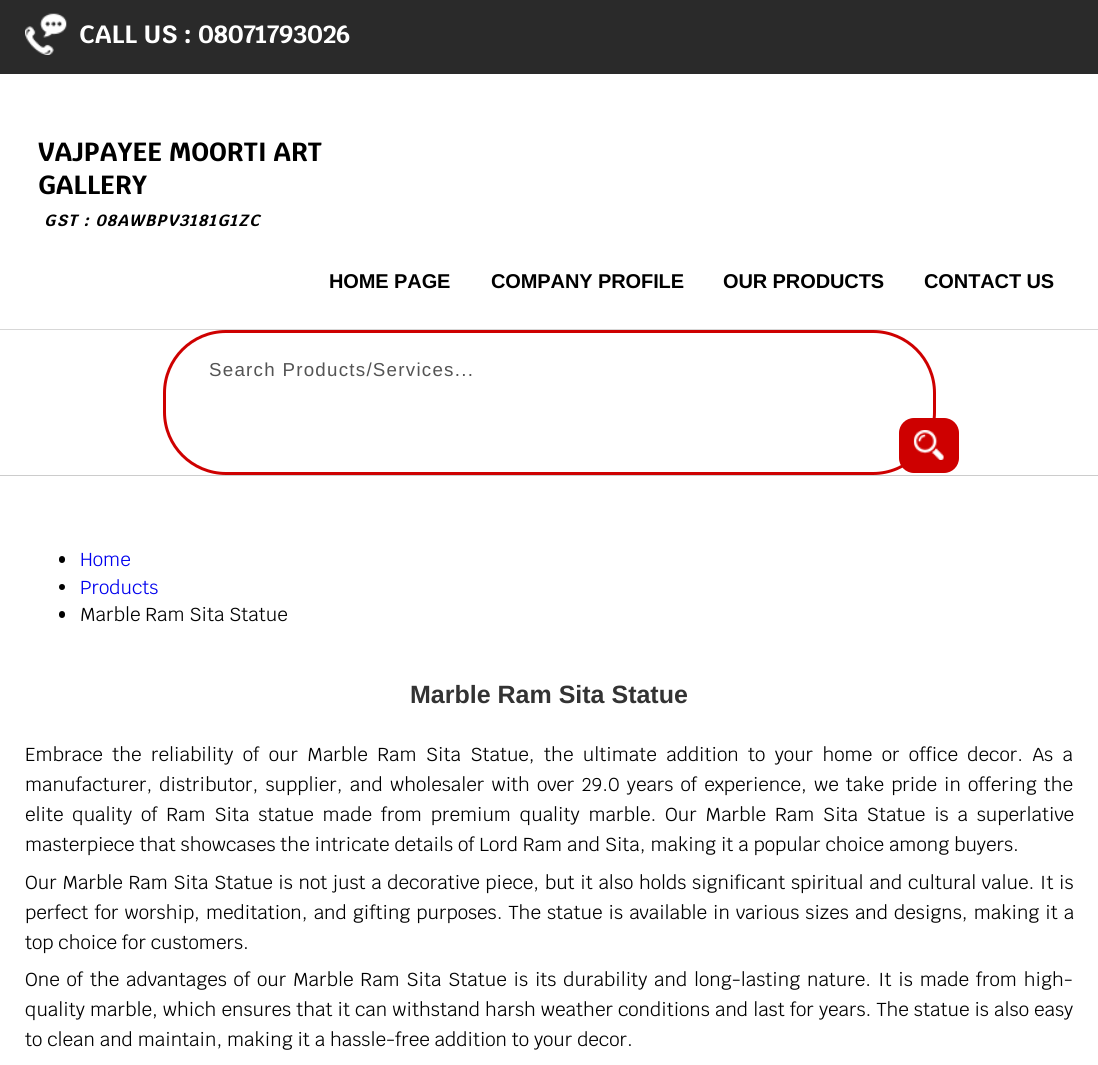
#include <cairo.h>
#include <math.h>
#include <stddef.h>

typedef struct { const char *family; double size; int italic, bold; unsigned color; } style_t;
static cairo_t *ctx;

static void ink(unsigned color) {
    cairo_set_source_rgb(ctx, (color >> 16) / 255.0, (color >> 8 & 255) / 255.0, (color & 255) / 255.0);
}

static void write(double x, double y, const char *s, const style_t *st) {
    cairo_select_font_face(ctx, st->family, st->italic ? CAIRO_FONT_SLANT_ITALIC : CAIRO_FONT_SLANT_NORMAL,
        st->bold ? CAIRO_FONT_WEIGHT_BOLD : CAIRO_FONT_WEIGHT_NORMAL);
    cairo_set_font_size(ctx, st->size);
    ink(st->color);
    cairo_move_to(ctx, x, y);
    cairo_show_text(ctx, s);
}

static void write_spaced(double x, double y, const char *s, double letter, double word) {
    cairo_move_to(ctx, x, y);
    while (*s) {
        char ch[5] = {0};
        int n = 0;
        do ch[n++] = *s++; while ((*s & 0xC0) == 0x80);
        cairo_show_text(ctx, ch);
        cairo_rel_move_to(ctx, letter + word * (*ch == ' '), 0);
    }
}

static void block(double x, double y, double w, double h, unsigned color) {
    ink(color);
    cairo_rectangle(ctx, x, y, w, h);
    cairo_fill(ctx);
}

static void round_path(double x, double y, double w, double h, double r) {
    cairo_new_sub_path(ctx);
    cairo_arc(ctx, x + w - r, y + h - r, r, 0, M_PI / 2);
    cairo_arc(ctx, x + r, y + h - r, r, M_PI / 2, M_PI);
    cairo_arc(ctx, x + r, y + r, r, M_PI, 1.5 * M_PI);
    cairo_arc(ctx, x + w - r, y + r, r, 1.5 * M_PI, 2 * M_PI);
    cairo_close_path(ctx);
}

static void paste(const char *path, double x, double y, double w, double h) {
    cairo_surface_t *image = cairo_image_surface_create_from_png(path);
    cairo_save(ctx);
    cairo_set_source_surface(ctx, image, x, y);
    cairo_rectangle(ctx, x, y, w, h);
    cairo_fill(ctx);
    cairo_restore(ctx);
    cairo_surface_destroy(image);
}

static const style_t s1 = {"Krub", 25, 0, 1, 0xffffff};
static const style_t s2 = {"Krub", 26.25, 0, 1, 0x000000};
static const style_t s3 = {"Krub", 18.75, 0, 0, 0x0000ee};
static const style_t s4 = {"Krub", 18.75, 0, 0, 0x000000};
static const style_t s5 = {"Liberation Sans", 25, 0, 1, 0x333333};

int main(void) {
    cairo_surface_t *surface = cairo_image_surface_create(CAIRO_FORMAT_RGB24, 1098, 1065);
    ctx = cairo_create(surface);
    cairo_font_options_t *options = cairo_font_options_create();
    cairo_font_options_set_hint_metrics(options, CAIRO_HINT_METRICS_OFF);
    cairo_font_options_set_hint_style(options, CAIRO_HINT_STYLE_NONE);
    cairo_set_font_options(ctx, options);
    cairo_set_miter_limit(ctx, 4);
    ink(0xffffff);
    cairo_paint(ctx);
    block(0, 0, 1098, 74, 0x2a2a2a);
    paste("pic1.png", 25, 13, 42, 42);
    write(79, 43, "CALL US : 08071793026", &s1);
    block(0, 329, 1098, 1, 0xd7d7d7);
    write(38, 161, "VAJPAYEE MOORTI ART", &s2);
    write(38, 194, "GALLERY", &s2);
    cairo_select_font_face(ctx, "Krub", CAIRO_FONT_SLANT_ITALIC, CAIRO_FONT_WEIGHT_BOLD);
    cairo_set_font_size(ctx, 16.25);
    write_spaced(44, 226, "GST : 08AWBPV3181G1ZC", 1.25, 0);
    cairo_select_font_face(ctx, "Liberation Sans", CAIRO_FONT_SLANT_NORMAL, CAIRO_FONT_WEIGHT_BOLD);
    cairo_set_font_size(ctx, 20);
    write_spaced(329, 288, "HOME PAGE", -0.1, 0);
    write_spaced(491, 288, "COMPANY PROFILE", -0.1, 0);
    write_spaced(723, 288, "OUR PRODUCTS", -0.1, 0);
    write_spaced(924, 288, "CONTACT US", -0.1, 0);
    round_path(164.5, 331.5, 770, 142, 61.5);
    ink(0xce0000);
    cairo_set_line_width(ctx, 3);
    cairo_stroke(ctx);
    cairo_select_font_face(ctx, "Liberation Sans", CAIRO_FONT_SLANT_NORMAL, CAIRO_FONT_WEIGHT_NORMAL);
    cairo_set_font_size(ctx, 18.75);
    ink(0x545454);
    write_spaced(209, 376, "Search Products/Services...", 1.25, 0);
    ink(0xce0000);
    round_path(899, 418, 60, 55, 15);
    cairo_fill(ctx);
    paste("pic2.png", 913, 430, 31, 30);
    block(0, 475, 1098, 1, 0xcccccc);
    ink(0x000000);
    round_path(59, 556, 6, 7, 3);
    cairo_fill(ctx);
    write(80, 566, "Home", &s3);
    ink(0x000000);
    cairo_new_path(ctx);
    cairo_arc(ctx, 62, 587, 3, 0, 2 * M_PI);
    cairo_fill(ctx);
    write(80, 594, "Products", &s3);
    ink(0x000000);
    round_path(59, 611, 6, 7, 3);
    cairo_fill(ctx);
    write(80, 621, "Marble Ram Sita Statue", &s4);
    write(410, 703, "Marble Ram Sita Statue", &s5);
    cairo_select_font_face(ctx, "Krub", CAIRO_FONT_SLANT_NORMAL, CAIRO_FONT_WEIGHT_NORMAL);
    cairo_set_font_size(ctx, 18.75);
    ink(0x000000);
    write_spaced(25, 761, "Embrace the reliability of our Marble Ram Sita Statue, the ultimate addition to your home or office decor. As a", 0, 4.6);
    write_spaced(25, 791, "manufacturer, distributor, supplier, and wholesaler with over 29.0 years of experience, we take pride in offering the", 0, 2.25);
    write_spaced(25, 821, "elite quality of Ram Sita statue made from premium quality marble. Our Marble Ram Sita Statue is a superlative", 0, 4);
    write(25, 851, "masterpiece that showcases the intricate details of Lord Ram and Sita, making it a popular choice among buyers.", &s4);
    write_spaced(25, 889, "Our Marble Ram Sita Statue is not just a decorative piece, but it also holds significant spiritual and cultural value. It is", 0, 0.85);
    write_spaced(25, 919, "perfect for worship, meditation, and gifting purposes. The statue is available in various sizes and designs, making it a", 0, 1.25);
    write(25, 949, "top choice for customers.", &s4);
    write_spaced(25, 986, "One of the advantages of our Marble Ram Sita Statue is its durability and long-lasting nature. It is made from high-", 0, 2);
    write_spaced(25, 1016, "quality marble, which ensures that it can withstand harsh weather conditions and last for years. The statue is also easy", 0, 0.25);
    write(25, 1046, "to clean and maintain, making it a hassle-free addition to your decor.", &s4);
    cairo_surface_write_to_png(surface, "screenshot.png");
    cairo_font_options_destroy(options);
    cairo_destroy(ctx);
    cairo_surface_destroy(surface);
    return 0;
}
